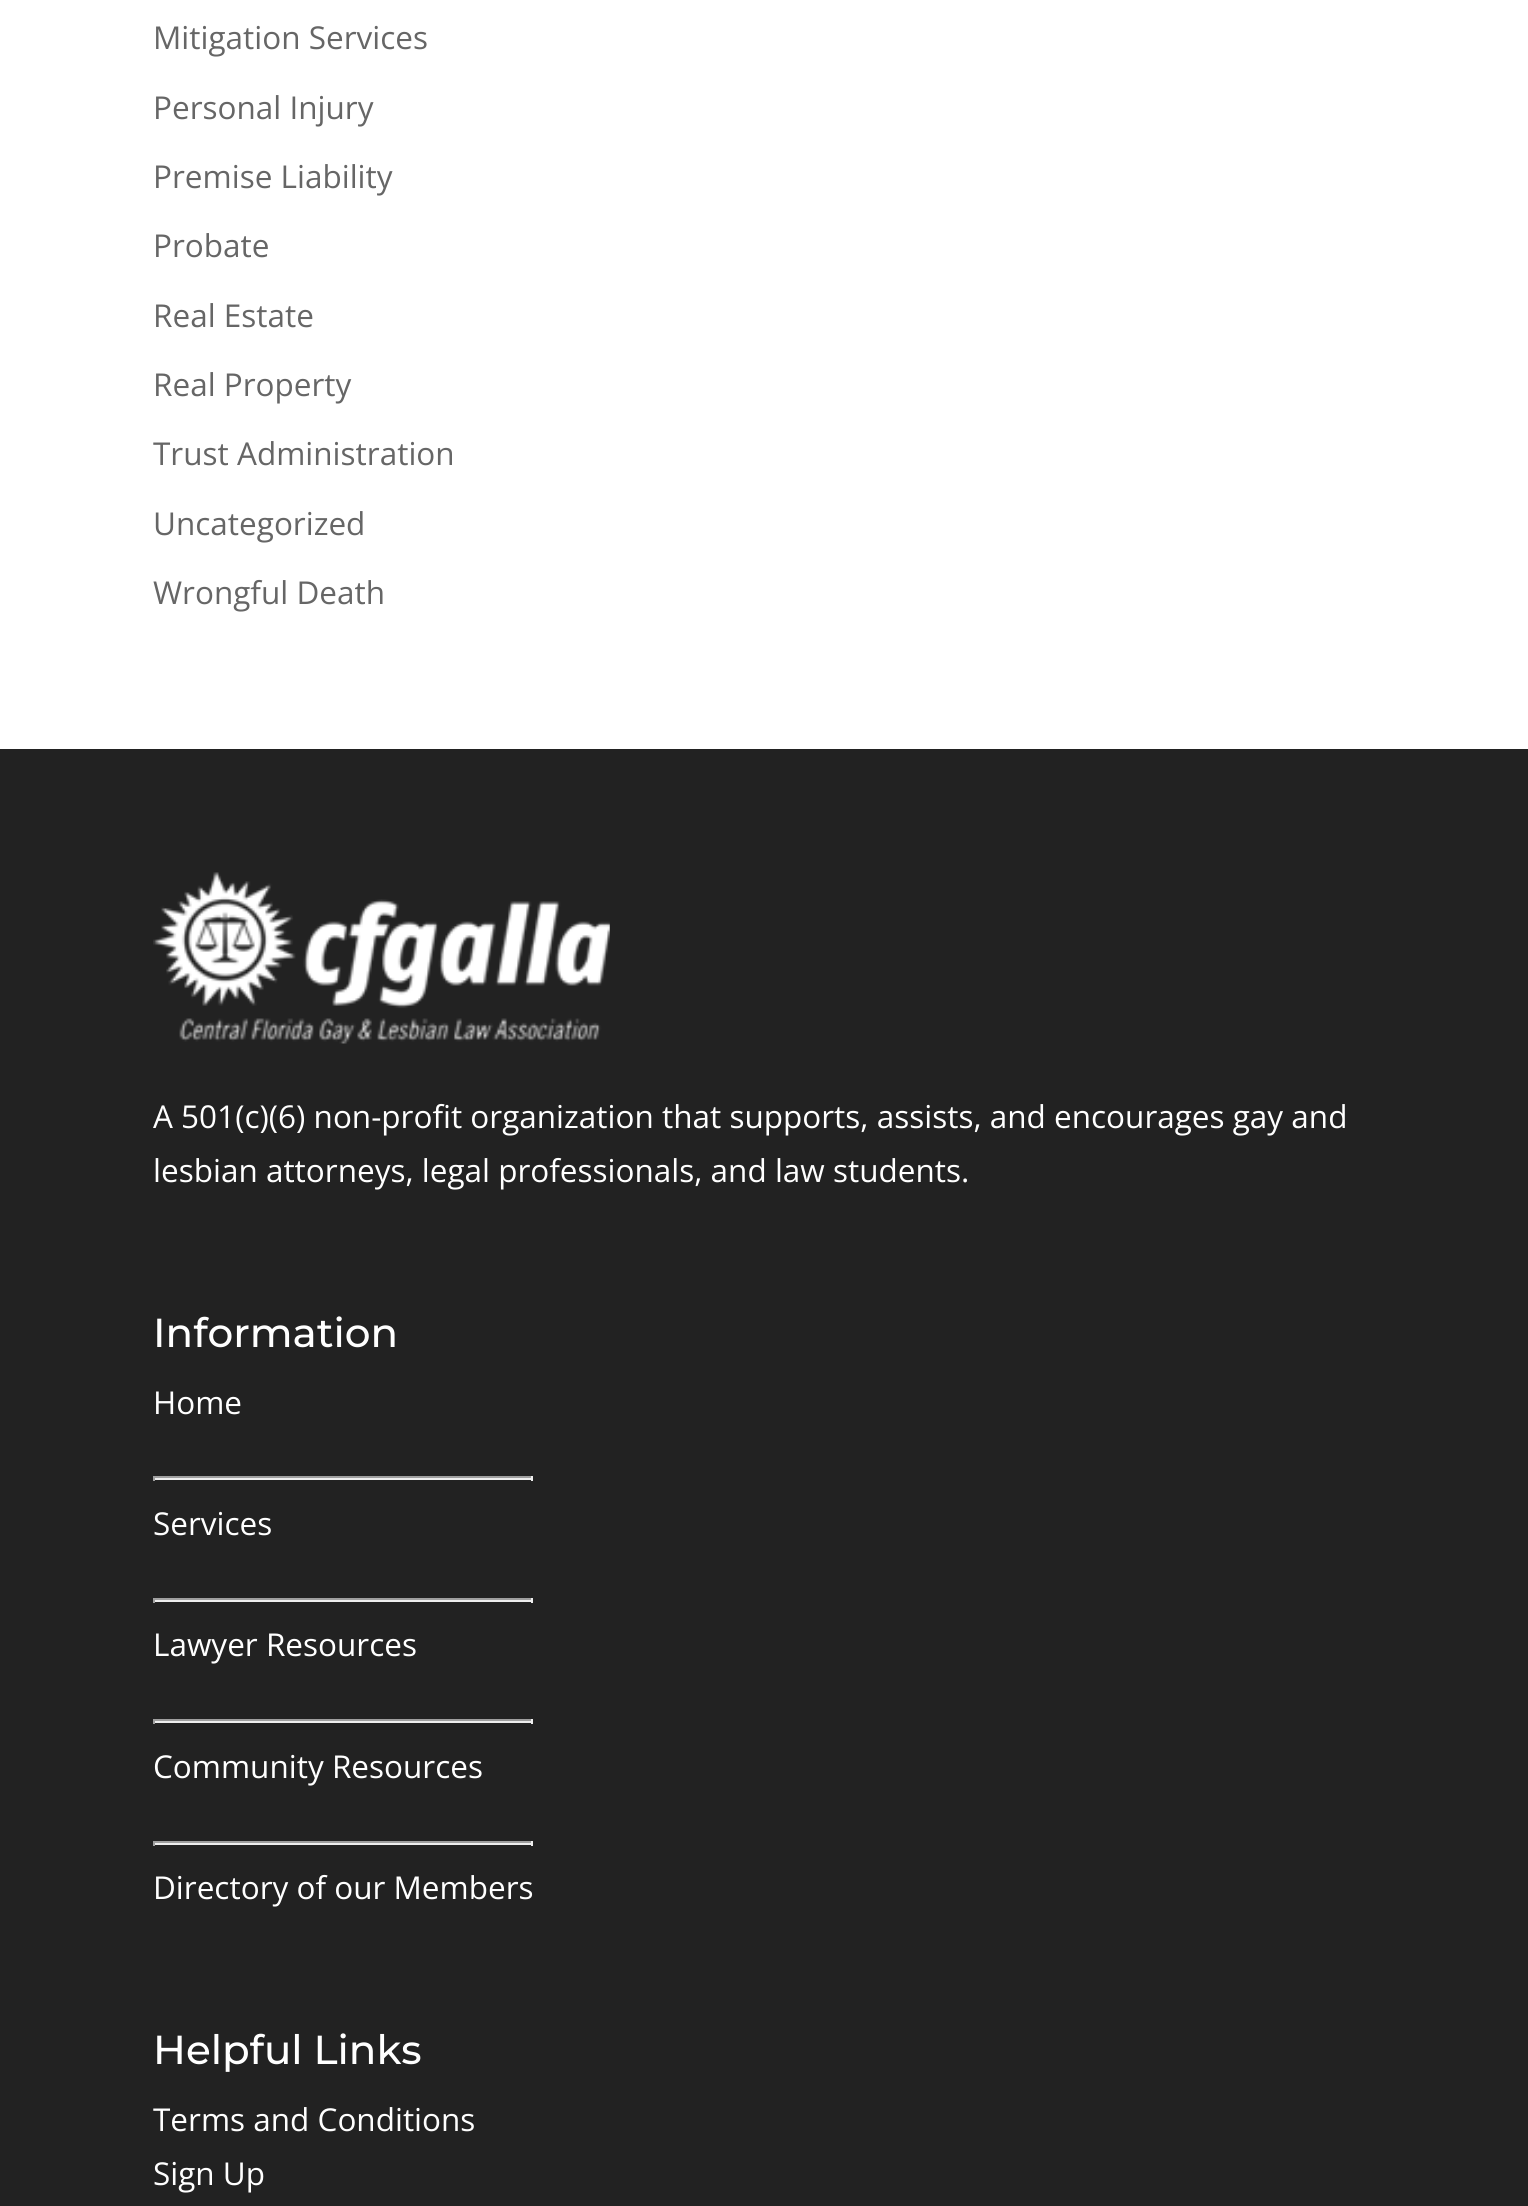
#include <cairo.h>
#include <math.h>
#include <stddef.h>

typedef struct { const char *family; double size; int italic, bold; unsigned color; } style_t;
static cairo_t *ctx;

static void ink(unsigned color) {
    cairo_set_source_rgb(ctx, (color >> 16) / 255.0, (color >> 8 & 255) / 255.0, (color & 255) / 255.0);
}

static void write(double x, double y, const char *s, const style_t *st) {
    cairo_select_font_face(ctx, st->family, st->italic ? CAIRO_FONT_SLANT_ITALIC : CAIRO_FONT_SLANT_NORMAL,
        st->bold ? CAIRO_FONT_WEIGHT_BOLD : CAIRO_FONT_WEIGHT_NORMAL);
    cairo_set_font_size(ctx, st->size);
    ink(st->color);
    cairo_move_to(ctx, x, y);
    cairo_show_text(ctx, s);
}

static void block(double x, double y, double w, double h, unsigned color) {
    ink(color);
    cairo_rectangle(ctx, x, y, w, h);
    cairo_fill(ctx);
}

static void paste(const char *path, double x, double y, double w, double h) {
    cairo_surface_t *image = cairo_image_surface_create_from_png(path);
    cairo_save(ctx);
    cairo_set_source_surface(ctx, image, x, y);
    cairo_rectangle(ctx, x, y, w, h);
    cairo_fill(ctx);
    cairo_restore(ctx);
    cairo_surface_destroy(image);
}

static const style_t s1 = {"Open Sans", 31.5, 0, 0, 0x666666};
static const style_t s2 = {"Open Sans", 31.5, 0, 0, 0xffffff};
static const style_t s3 = {"Montserrat Thin", 40.5, 0, 0, 0xffffff};

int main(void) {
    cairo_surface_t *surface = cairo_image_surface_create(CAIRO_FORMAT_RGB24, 1528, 2206);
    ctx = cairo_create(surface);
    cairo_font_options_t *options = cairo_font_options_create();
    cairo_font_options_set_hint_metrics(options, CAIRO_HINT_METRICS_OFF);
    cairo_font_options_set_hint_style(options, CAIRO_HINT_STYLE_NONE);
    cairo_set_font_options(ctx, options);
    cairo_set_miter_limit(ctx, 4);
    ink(0xffffff);
    cairo_paint(ctx);
    write(153, 49, "Mitigation Services", &s1);
    write(153, 119, "Personal Injury", &s1);
    write(153, 188, "Premise Liability", &s1);
    write(153, 257, "Probate", &s1);
    write(153, 327, "Real Estate", &s1);
    write(153, 396, "Real Property", &s1);
    write(153, 465, "Trust Administration", &s1);
    write(153, 535, "Uncategorized", &s1);
    write(153, 604, "Wrongful Death", &s1);
    block(0, 749, 1528, 1457, 0x222222);
    paste("pic1.png", 153, 872, 457, 172);
    write(153, 1128, "A 501(c)(6) non-profit organization that supports, assists, and encourages gay and", &s2);
    write(153, 1182, "lesbian attorneys, legal professionals, and law students.", &s2);
    write(153, 1347, "Information", &s3);
    write(153, 1414, "Home", &s2);
    block(153, 1476, 380, 2, 0x9f9f9f);
    block(531, 1476, 2, 5, 0xeeeeee);
    block(153, 1478, 380, 2, 0xeeeeee);
    block(153, 1476, 2, 5, 0x9f9f9f);
    write(153, 1535, "Services", &s2);
    block(153, 1598, 380, 2, 0x9f9f9f);
    block(531, 1598, 2, 5, 0xeeeeee);
    block(153, 1600, 380, 2, 0xeeeeee);
    block(153, 1598, 2, 5, 0x9f9f9f);
    write(153, 1656, "Lawyer Resources", &s2);
    block(153, 1719, 380, 2, 0x9f9f9f);
    block(531, 1719, 2, 5, 0xeeeeee);
    block(153, 1721, 380, 2, 0xeeeeee);
    block(153, 1719, 2, 5, 0x9f9f9f);
    write(153, 1778, "Community Resources", &s2);
    block(153, 1841, 380, 2, 0x9f9f9f);
    block(531, 1841, 2, 5, 0xeeeeee);
    block(153, 1843, 380, 2, 0xeeeeee);
    block(153, 1841, 2, 5, 0x9f9f9f);
    write(153, 1899, "Directory of our Members", &s2);
    write(153, 2064, "Helpful Links", &s3);
    write(153, 2131, "Terms and Conditions", &s2);
    write(153, 2185, "Sign Up", &s2);
    cairo_surface_write_to_png(surface, "screenshot.png");
    cairo_font_options_destroy(options);
    cairo_destroy(ctx);
    cairo_surface_destroy(surface);
    return 0;
}
